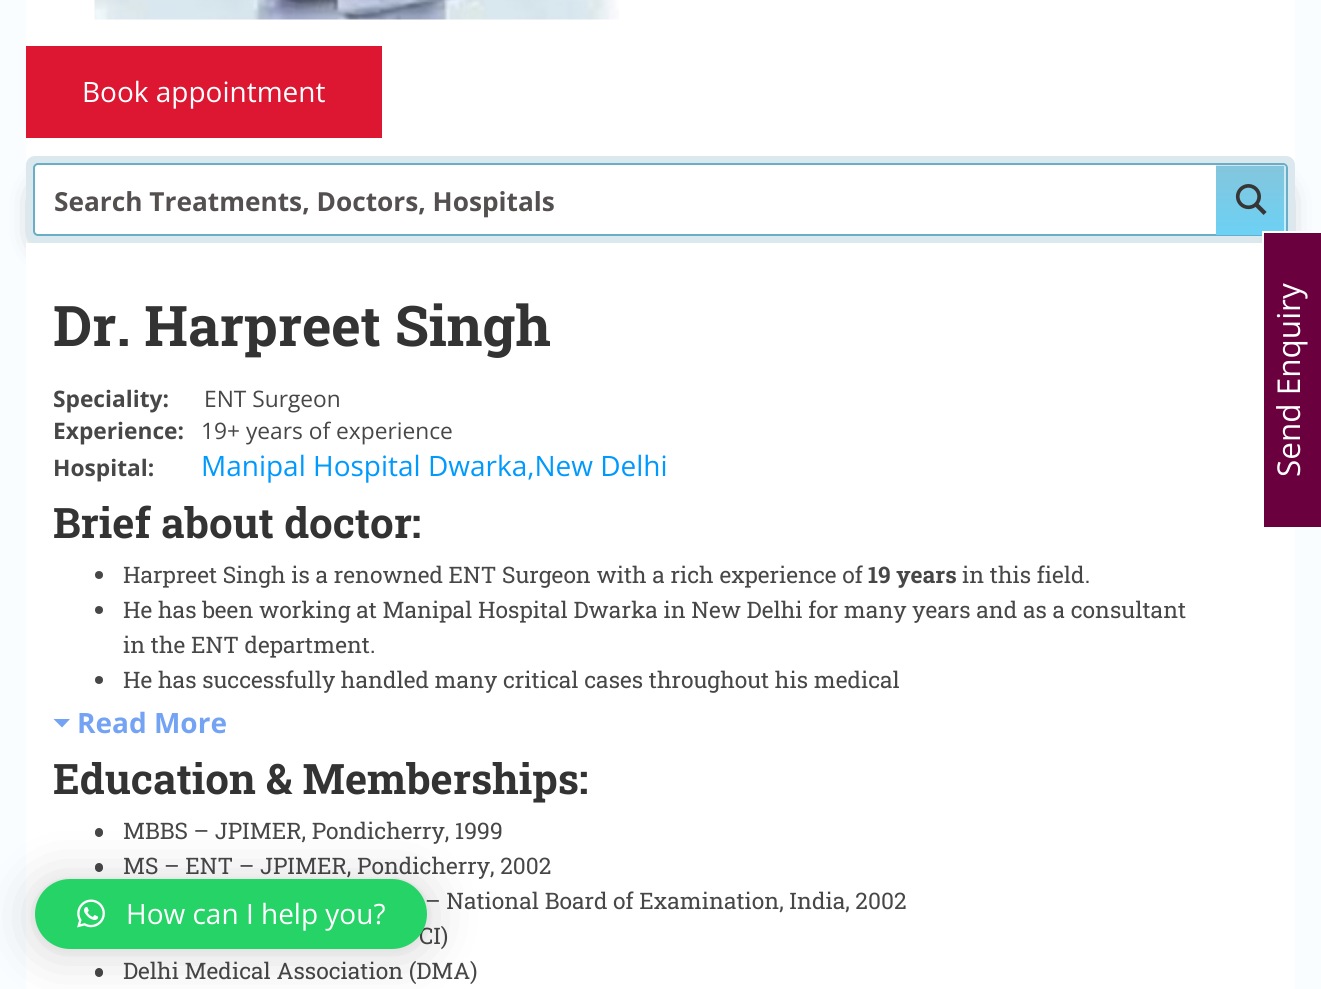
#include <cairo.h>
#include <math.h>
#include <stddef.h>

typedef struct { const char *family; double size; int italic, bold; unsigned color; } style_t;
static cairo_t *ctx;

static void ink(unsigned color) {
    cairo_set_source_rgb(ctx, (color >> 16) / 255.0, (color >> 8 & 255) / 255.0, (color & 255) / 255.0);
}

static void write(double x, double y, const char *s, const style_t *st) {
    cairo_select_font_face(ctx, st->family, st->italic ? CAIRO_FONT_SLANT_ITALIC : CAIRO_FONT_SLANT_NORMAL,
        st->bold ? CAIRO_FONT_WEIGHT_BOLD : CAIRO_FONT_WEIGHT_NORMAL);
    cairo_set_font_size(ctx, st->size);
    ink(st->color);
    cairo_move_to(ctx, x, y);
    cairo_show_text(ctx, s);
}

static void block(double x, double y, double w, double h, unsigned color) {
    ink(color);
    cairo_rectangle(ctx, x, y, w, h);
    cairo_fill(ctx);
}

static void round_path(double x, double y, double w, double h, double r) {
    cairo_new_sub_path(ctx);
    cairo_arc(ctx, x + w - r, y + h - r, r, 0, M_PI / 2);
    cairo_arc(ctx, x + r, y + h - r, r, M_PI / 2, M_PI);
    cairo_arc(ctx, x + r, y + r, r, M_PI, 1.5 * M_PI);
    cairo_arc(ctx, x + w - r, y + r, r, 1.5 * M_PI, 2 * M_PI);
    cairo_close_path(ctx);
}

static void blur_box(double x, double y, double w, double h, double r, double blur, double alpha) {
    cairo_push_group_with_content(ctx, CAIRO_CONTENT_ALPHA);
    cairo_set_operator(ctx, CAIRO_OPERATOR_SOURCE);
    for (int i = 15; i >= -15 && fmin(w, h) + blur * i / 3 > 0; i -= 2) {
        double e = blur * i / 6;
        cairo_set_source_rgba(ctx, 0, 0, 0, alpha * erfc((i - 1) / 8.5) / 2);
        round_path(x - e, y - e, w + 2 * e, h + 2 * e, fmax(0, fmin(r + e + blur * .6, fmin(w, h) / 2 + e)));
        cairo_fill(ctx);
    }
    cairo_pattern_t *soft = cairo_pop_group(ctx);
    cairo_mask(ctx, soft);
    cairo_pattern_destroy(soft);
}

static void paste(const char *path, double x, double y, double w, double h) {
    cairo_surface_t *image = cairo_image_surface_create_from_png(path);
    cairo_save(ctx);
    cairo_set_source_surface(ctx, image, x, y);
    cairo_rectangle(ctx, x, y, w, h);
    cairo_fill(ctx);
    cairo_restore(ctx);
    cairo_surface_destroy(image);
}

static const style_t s1 = {"Open Sans", 28, 0, 0, 0xffffff};
static const style_t s2 = {"Open Sans", 26.25, 0, 1, 0x545050};
static const style_t s3 = {"Roboto Slab", 56, 0, 1, 0x333333};
static const style_t s4 = {"Open Sans", 22.75, 0, 1, 0x474747};
static const style_t s5 = {"Open Sans", 22.75, 0, 0, 0x474747};
static const style_t s6 = {"Open Sans", 28, 0, 0, 0x0099fe};
static const style_t s7 = {"Roboto Slab", 42, 0, 1, 0x333333};
static const style_t s8 = {"Roboto Slab", 22.75, 0, 0, 0x474747};
static const style_t s9 = {"Roboto Slab", 22.75, 0, 1, 0x474747};
static const style_t s10 = {"Open Sans", 28, 0, 1, 0x74a3f3};
static const style_t s11 = {"Open Sans", 31.5, 0, 0, 0xffffff};

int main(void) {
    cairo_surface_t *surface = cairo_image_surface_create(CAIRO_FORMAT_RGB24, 1321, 989);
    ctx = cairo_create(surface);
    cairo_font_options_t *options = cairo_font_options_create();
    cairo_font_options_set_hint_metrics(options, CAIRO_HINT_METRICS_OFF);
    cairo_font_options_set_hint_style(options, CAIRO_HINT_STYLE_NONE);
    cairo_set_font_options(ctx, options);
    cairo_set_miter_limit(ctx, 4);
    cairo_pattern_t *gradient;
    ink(0xfafdff);
    cairo_paint(ctx);
    block(26, 0, 1269, 243, 0xffffff);
    paste("pic1.png", 94, 0, 525, 20);
    block(26, 46, 356, 92, 0xdd1632);
    write(82, 102, "Book appointment", &s1);
    ink(0x000000);
    blur_box(49, 196, 1223, 42, 0, 16, 1);
    ink(0xdbe9ee);
    round_path(26, 156, 1269, 87, 9);
    cairo_fill(ctx);
    ink(0xffffff);
    round_path(34, 164, 1253, 71, 4);
    cairo_fill_preserve(ctx);
    ink(0x68aec7);
    cairo_stroke(ctx);
    write(54, 211, "Search Treatments, Doctors, Hospitals", &s2);
    gradient = cairo_pattern_create_linear(1251, 165, 1251, 235);
    cairo_pattern_add_color_stop_rgba(gradient, 0, 0.518, 0.773, 0.863, 1);
    cairo_pattern_add_color_stop_rgba(gradient, 1, 0.424, 0.82, 0.961, 1);
    cairo_set_source(ctx, gradient);
    cairo_pattern_destroy(gradient);
    cairo_new_path(ctx);
    cairo_move_to(ctx, 1216, 165);
    cairo_line_to(ctx, 1282, 165);
    cairo_curve_to(ctx, 1284, 165, 1286, 167, 1286, 169);
    cairo_line_to(ctx, 1286, 231);
    cairo_curve_to(ctx, 1286, 233, 1284, 235, 1282, 235);
    cairo_line_to(ctx, 1216, 235);
    cairo_close_path(ctx);
    cairo_fill(ctx);
    cairo_save(ctx);
    cairo_rectangle(ctx, 1216, 165, 70, 70);
    cairo_clip(ctx);
    cairo_set_source_rgba(ctx, 1, 1, 1, 0.61);
    cairo_new_path(ctx);
    cairo_move_to(ctx, 1214, 166);
    cairo_line_to(ctx, 1214, 235);
    cairo_line_to(ctx, 1043, 235);
    cairo_line_to(ctx, 1043, 165);
    cairo_line_to(ctx, 1282, 165);
    cairo_curve_to(ctx, 1284, 165, 1286, 167, 1286, 169);
    cairo_line_to(ctx, 1286, 231);
    cairo_curve_to(ctx, 1286, 232, 1285, 234, 1284, 234);
    cairo_line_to(ctx, 1284, 166);
    cairo_close_path(ctx);
    cairo_fill(ctx);
    cairo_restore(ctx);
    paste("pic2.png", 1235, 184, 32, 31);
    block(26, 243, 1269, 746, 0xffffff);
    write(53, 346, "Dr. Harpreet Singh", &s3);
    write(53, 407, "Speciality:", &s4);
    write(204, 407, "ENT Surgeon", &s5);
    write(53, 439, "Experience:", &s4);
    write(201, 439, "19+ years of experience", &s5);
    write(53, 476, "Hospital:", &s4);
    write(201, 476, "Manipal Hospital Dwarka,New Delhi", &s6);
    write(53, 538, "Brief about doctor:", &s7);
    ink(0x474747);
    cairo_new_path(ctx);
    cairo_arc(ctx, 99, 575, 4, 0, 2 * M_PI);
    cairo_fill(ctx);
    write(123, 583, "Harpreet Singh is a renowned ENT Surgeon with a rich experience of", &s8);
    write(868, 583, "19 years", &s9);
    write(962, 583, "in this field.", &s8);
    cairo_new_path(ctx);
    cairo_arc(ctx, 99, 610, 4, 0, 2 * M_PI);
    cairo_fill(ctx);
    write(123, 618, "He has been working at Manipal Hospital Dwarka in New Delhi for many years and as a consultant", &s8);
    write(123, 653, "in the ENT department.", &s8);
    cairo_new_path(ctx);
    cairo_arc(ctx, 99, 680, 4, 0, 2 * M_PI);
    cairo_fill(ctx);
    write(123, 688, "He has successfully handled many critical cases throughout his medical", &s8);
    ink(0x74a3f3);
    cairo_new_path(ctx);
    cairo_move_to(ctx, 53.5, 719);
    cairo_line_to(ctx, 70, 719);
    cairo_line_to(ctx, 62, 727.5);
    cairo_close_path(ctx);
    cairo_fill(ctx);
    write(77, 733, "Read More", &s10);
    write(53, 794, "Education & Memberships:", &s7);
    ink(0x474747);
    round_path(95, 828, 8, 9, 4);
    cairo_fill(ctx);
    write(123, 839, "MBBS – JPIMER, Pondicherry, 1999", &s8);
    round_path(95, 863, 8, 9, 4);
    cairo_fill(ctx);
    write(123, 874, "MS – ENT – JPIMER, Pondicherry, 2002", &s8);
    write(425, 909, "– National Board of Examination, India, 2002", &s8);
    write(419, 944, "CI)", &s8);
    round_path(95, 968, 8, 9, 4);
    cairo_fill(ctx);
    write(123, 979, "Delhi Medical Association (DMA)", &s8);
    block(1264, 233, 57, 294, 0x6b003e);
    block(1262, 231, 2, 12, 0xffffff);
    block(1262, 231, 59, 2, 0xffffff);
    block(1295, 527, 26, 1, 0xffffff);
    cairo_save(ctx);
    cairo_translate(ctx, 1300, 477);
    cairo_rotate(ctx, -90 * M_PI / 180);
    write(0, 0, "Send Enquiry", &s11);
    cairo_restore(ctx);
    ink(0x000000);
    blur_box(35, 882, 392, 70, 35, 28, 0.16);
    blur_box(35, 880, 392, 70, 35, 5, 0.06);
    ink(0x25d366);
    round_path(35, 879, 392, 70, 35);
    cairo_fill(ctx);
    paste("pic3.png", 77, 899, 28, 29);
    write(126, 924, "How can I help you?", &s1);
    cairo_surface_write_to_png(surface, "screenshot.png");
    cairo_font_options_destroy(options);
    cairo_destroy(ctx);
    cairo_surface_destroy(surface);
    return 0;
}
